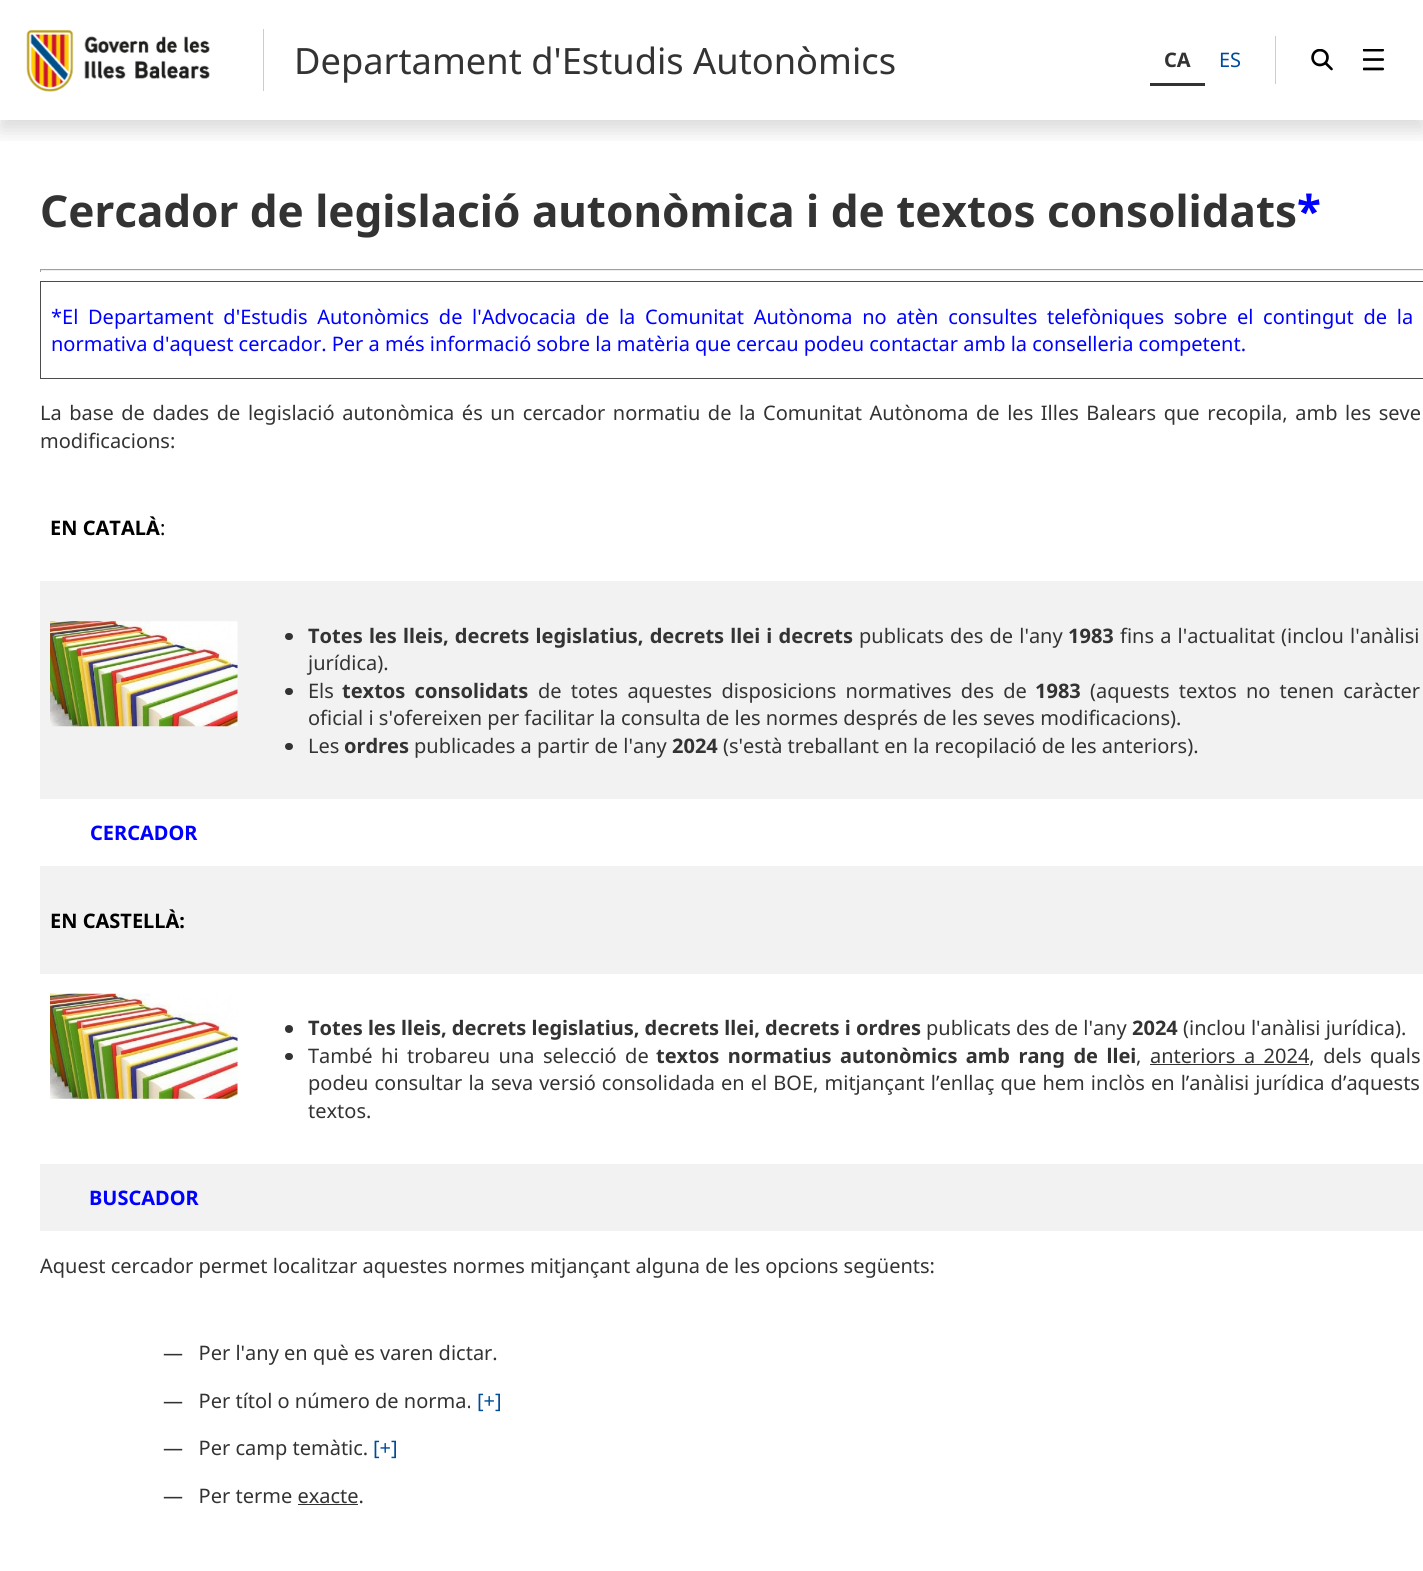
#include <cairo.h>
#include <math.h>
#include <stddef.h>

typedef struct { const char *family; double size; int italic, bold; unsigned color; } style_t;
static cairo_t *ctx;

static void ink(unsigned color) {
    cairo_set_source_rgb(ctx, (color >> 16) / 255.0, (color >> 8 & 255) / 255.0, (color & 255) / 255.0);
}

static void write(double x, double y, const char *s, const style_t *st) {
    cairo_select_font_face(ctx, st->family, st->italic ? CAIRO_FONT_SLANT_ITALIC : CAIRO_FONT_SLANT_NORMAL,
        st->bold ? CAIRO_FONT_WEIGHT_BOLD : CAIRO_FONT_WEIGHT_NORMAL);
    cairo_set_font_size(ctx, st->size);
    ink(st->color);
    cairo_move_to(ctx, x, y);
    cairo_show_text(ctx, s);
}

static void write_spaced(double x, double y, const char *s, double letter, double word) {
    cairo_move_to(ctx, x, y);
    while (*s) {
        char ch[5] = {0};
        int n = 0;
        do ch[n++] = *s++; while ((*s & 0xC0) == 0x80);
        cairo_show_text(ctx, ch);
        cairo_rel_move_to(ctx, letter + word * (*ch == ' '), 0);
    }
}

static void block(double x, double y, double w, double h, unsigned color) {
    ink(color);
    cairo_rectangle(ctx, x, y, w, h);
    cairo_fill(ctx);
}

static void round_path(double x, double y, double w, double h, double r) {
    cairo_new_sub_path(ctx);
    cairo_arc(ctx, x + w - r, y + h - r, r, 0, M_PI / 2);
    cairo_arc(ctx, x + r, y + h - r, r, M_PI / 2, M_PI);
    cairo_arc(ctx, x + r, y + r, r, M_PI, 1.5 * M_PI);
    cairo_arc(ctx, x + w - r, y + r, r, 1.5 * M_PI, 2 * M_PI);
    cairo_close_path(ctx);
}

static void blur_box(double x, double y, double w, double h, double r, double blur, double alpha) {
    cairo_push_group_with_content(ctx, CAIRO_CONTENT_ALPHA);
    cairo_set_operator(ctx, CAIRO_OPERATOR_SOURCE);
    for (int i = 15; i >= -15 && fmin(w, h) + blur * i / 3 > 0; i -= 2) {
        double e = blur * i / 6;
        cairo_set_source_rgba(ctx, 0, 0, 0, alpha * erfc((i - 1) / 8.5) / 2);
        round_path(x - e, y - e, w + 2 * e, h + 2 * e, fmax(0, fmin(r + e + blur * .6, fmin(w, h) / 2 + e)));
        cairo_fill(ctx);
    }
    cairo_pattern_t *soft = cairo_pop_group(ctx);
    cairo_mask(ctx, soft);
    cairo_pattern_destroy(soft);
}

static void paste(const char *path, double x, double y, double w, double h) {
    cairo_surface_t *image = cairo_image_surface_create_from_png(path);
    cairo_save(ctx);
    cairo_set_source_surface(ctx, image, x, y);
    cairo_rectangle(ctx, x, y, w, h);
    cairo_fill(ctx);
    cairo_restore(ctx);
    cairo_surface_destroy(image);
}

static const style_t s1 = {"Noto Sans", 36.25, 0, 0, 0x333333};
static const style_t s2 = {"Noto Sans", 20, 0, 1, 0x333333};
static const style_t s3 = {"Noto Sans", 20, 0, 0, 0x004b99};
static const style_t s4 = {"Noto Sans", 44, 0, 1, 0x333333};
static const style_t s5 = {"Noto Sans", 44, 0, 1, 0x0000ff};
static const style_t s6 = {"Noto Sans", 20, 0, 0, 0x0000ff};
static const style_t s7 = {"Noto Sans", 20, 0, 0, 0x333333};
static const style_t s8 = {"Noto Sans", 20, 0, 1, 0x000000};
static const style_t s9 = {"Noto Sans", 20, 0, 0, 0x000000};
static const style_t s10 = {"Noto Sans", 20, 0, 1, 0x0000ff};

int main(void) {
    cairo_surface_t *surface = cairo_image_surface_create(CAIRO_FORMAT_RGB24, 1423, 1571);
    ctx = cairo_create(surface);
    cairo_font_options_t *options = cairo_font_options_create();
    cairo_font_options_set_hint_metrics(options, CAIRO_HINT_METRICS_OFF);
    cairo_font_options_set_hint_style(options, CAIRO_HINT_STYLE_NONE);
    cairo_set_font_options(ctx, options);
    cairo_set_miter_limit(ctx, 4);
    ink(0xffffff);
    cairo_paint(ctx);
    cairo_save(ctx);
    cairo_rectangle(ctx, 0, 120, 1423, 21);
    cairo_clip(ctx);
    ink(0x000000);
    blur_box(0, 10, 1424, 120, 0, 10, 0.15);
    cairo_restore(ctx);
    block(263, 29, 1, 62, 0xcccccc);
    paste("pic1.png", 26, 29, 184, 63);
    write(294, 74, "Departament d'Estudis Autonòmics", &s1);
    block(1275, 36, 1, 48, 0xcccccc);
    block(1150, 83, 55, 3, 0x333333);
    write(1164, 67, "CA", &s2);
    write(1219, 67, "ES", &s3);
    paste("pic2.png", 1311, 49, 22, 22);
    paste("pic3.png", 1363, 49, 22, 22);
    write(40, 227, "Cercador de legislació autonòmica i de textos consolidats", &s4);
    write(1297, 227, "*", &s5);
    block(40, 269, 1383, 1, 0x9f9f9f);
    block(40, 270, 1383, 1, 0xeeeeee);
    block(40, 269, 1, 3, 0x9f9f9f);
    block(40, 281, 1383, 1, 0x4d4c4c);
    block(40, 378, 1383, 1, 0x4d4c4c);
    block(40, 281, 1, 98, 0x4d4c4c);
    cairo_select_font_face(ctx, "Noto Sans", CAIRO_FONT_SLANT_NORMAL, CAIRO_FONT_WEIGHT_NORMAL);
    cairo_set_font_size(ctx, 20);
    ink(0x0000ff);
    write_spaced(51, 324, "*El Departament d'Estudis Autonòmics de l'Advocacia de la Comunitat Autònoma no atèn consultes telefòniques sobre el contingut de la", 0, 4.5);
    write(51, 351, "normativa d'aquest cercador. Per a més informació sobre la matèria que cercau podeu contactar amb la conselleria competent.", &s6);
    ink(0x333333);
    write_spaced(40, 420, "La base de dades de legislació autonòmica és un cercador normatiu de la Comunitat Autònoma de les Illes Balears que recopila, amb les seve", 0, 2.4);
    write(40, 448, "modificacions:", &s7);
    write(50, 535, "EN CATALÀ", &s8);
    write(160, 535, ":", &s9);
    block(40, 581, 1383, 218, 0xf2f2f2);
    paste("pic4.png", 50, 621, 188, 106);
    ink(0x333333);
    round_path(285, 633, 8, 7, 3.5);
    cairo_fill(ctx);
    cairo_select_font_face(ctx, "Noto Sans", CAIRO_FONT_SLANT_NORMAL, CAIRO_FONT_WEIGHT_BOLD);
    write_spaced(308, 643, "Totes les lleis, decrets legislatius, decrets llei i decrets", 0, 1);
    cairo_select_font_face(ctx, "Noto Sans", CAIRO_FONT_SLANT_NORMAL, CAIRO_FONT_WEIGHT_NORMAL);
    write_spaced(859, 643, "publicats des de l'any", 0, 1);
    write(1068, 643, "1983", &s2);
    cairo_select_font_face(ctx, "Noto Sans", CAIRO_FONT_SLANT_NORMAL, CAIRO_FONT_WEIGHT_NORMAL);
    write_spaced(1120, 643, "fins a l'actualitat (inclou l'anàlisi", 0, 1);
    write(308, 670, "jurídica).", &s7);
    round_path(285, 688, 8, 7, 3.5);
    cairo_fill(ctx);
    write(308, 698, "Els", &s7);
    cairo_select_font_face(ctx, "Noto Sans", CAIRO_FONT_SLANT_NORMAL, CAIRO_FONT_WEIGHT_BOLD);
    write_spaced(342, 698, "textos consolidats", 0, 4);
    cairo_select_font_face(ctx, "Noto Sans", CAIRO_FONT_SLANT_NORMAL, CAIRO_FONT_WEIGHT_NORMAL);
    write_spaced(538, 698, "de totes aquestes disposicions normatives des de", 0, 4);
    write(1035, 698, "1983", &s2);
    cairo_select_font_face(ctx, "Noto Sans", CAIRO_FONT_SLANT_NORMAL, CAIRO_FONT_WEIGHT_NORMAL);
    write_spaced(1090, 698, "(aquests textos no tenen caràcter", 0, 4);
    write(308, 725, "oficial i s'ofereixen per facilitar la consulta de les normes després de les seves modificacions).", &s7);
    round_path(285, 743, 8, 7, 3.5);
    cairo_fill(ctx);
    write(308, 753, "Les", &s7);
    write(344, 753, "ordres", &s2);
    write(414, 753, "publicades a partir de l'any", &s7);
    write(672, 753, "2024", &s2);
    write(723, 753, "(s'està treballant en la recopilació de les anteriors).", &s7);
    write(90, 840, "CERCADOR", &s10);
    block(40, 866, 1383, 108, 0xf2f2f2);
    write(50, 928, "EN CASTELLÀ:", &s8);
    paste("pic5.png", 50, 993, 188, 106);
    ink(0x333333);
    cairo_arc(ctx, 289, 1029, 4, 0, 2 * M_PI);
    cairo_fill(ctx);
    write(308, 1035, "Totes les lleis, decrets legislatius, decrets llei, decrets i ordres", &s2);
    write(926, 1035, "publicats des de l'any", &s7);
    write(1132, 1035, "2024", &s2);
    write(1183, 1035, "(inclou l'anàlisi jurídica).", &s7);
    round_path(285, 1053, 8, 7, 3.5);
    cairo_fill(ctx);
    write_spaced(308, 1063, "També hi trobareu una selecció de", 0, 3.25);
    cairo_select_font_face(ctx, "Noto Sans", CAIRO_FONT_SLANT_NORMAL, CAIRO_FONT_WEIGHT_BOLD);
    write_spaced(656, 1063, "textos normatius autonòmics amb rang de llei", 0, 3.25);
    block(1150, 1064, 159, 1, 0x333333);
    cairo_select_font_face(ctx, "Noto Sans", CAIRO_FONT_SLANT_NORMAL, CAIRO_FONT_WEIGHT_NORMAL);
    write_spaced(1150, 1063, "anteriors a 2024, dels quals", 0, 3.25);
    write(1136, 1063, ",", &s7);
    write_spaced(308, 1090, "podeu consultar la seva versió consolidada en el BOE, mitjançant l’enllaç que hem inclòs en l’anàlisi jurídica d’aquests", 0, 0.9);
    write(308, 1118, "textos.", &s7);
    block(40, 1164, 1383, 67, 0xf2f2f2);
    write(89, 1205, "BUSCADOR", &s10);
    write(40, 1273, "Aquest cercador permet localitzar aquestes normes mitjançant alguna de les opcions següents:", &s7);
    write(163, 1360, "—   Per l'any en què es varen dictar.", &s7);
    write(163, 1408, "—   Per títol o número de norma.", &s7);
    write(477, 1408, "[+]", &s3);
    write(163, 1455, "—   Per camp temàtic.", &s7);
    write(373, 1455, "[+]", &s3);
    write(163, 1503, "—   Per terme exacte.", &s7);
    block(298, 1504, 60, 1, 0x333333);
    cairo_surface_write_to_png(surface, "screenshot.png");
    cairo_font_options_destroy(options);
    cairo_destroy(ctx);
    cairo_surface_destroy(surface);
    return 0;
}
